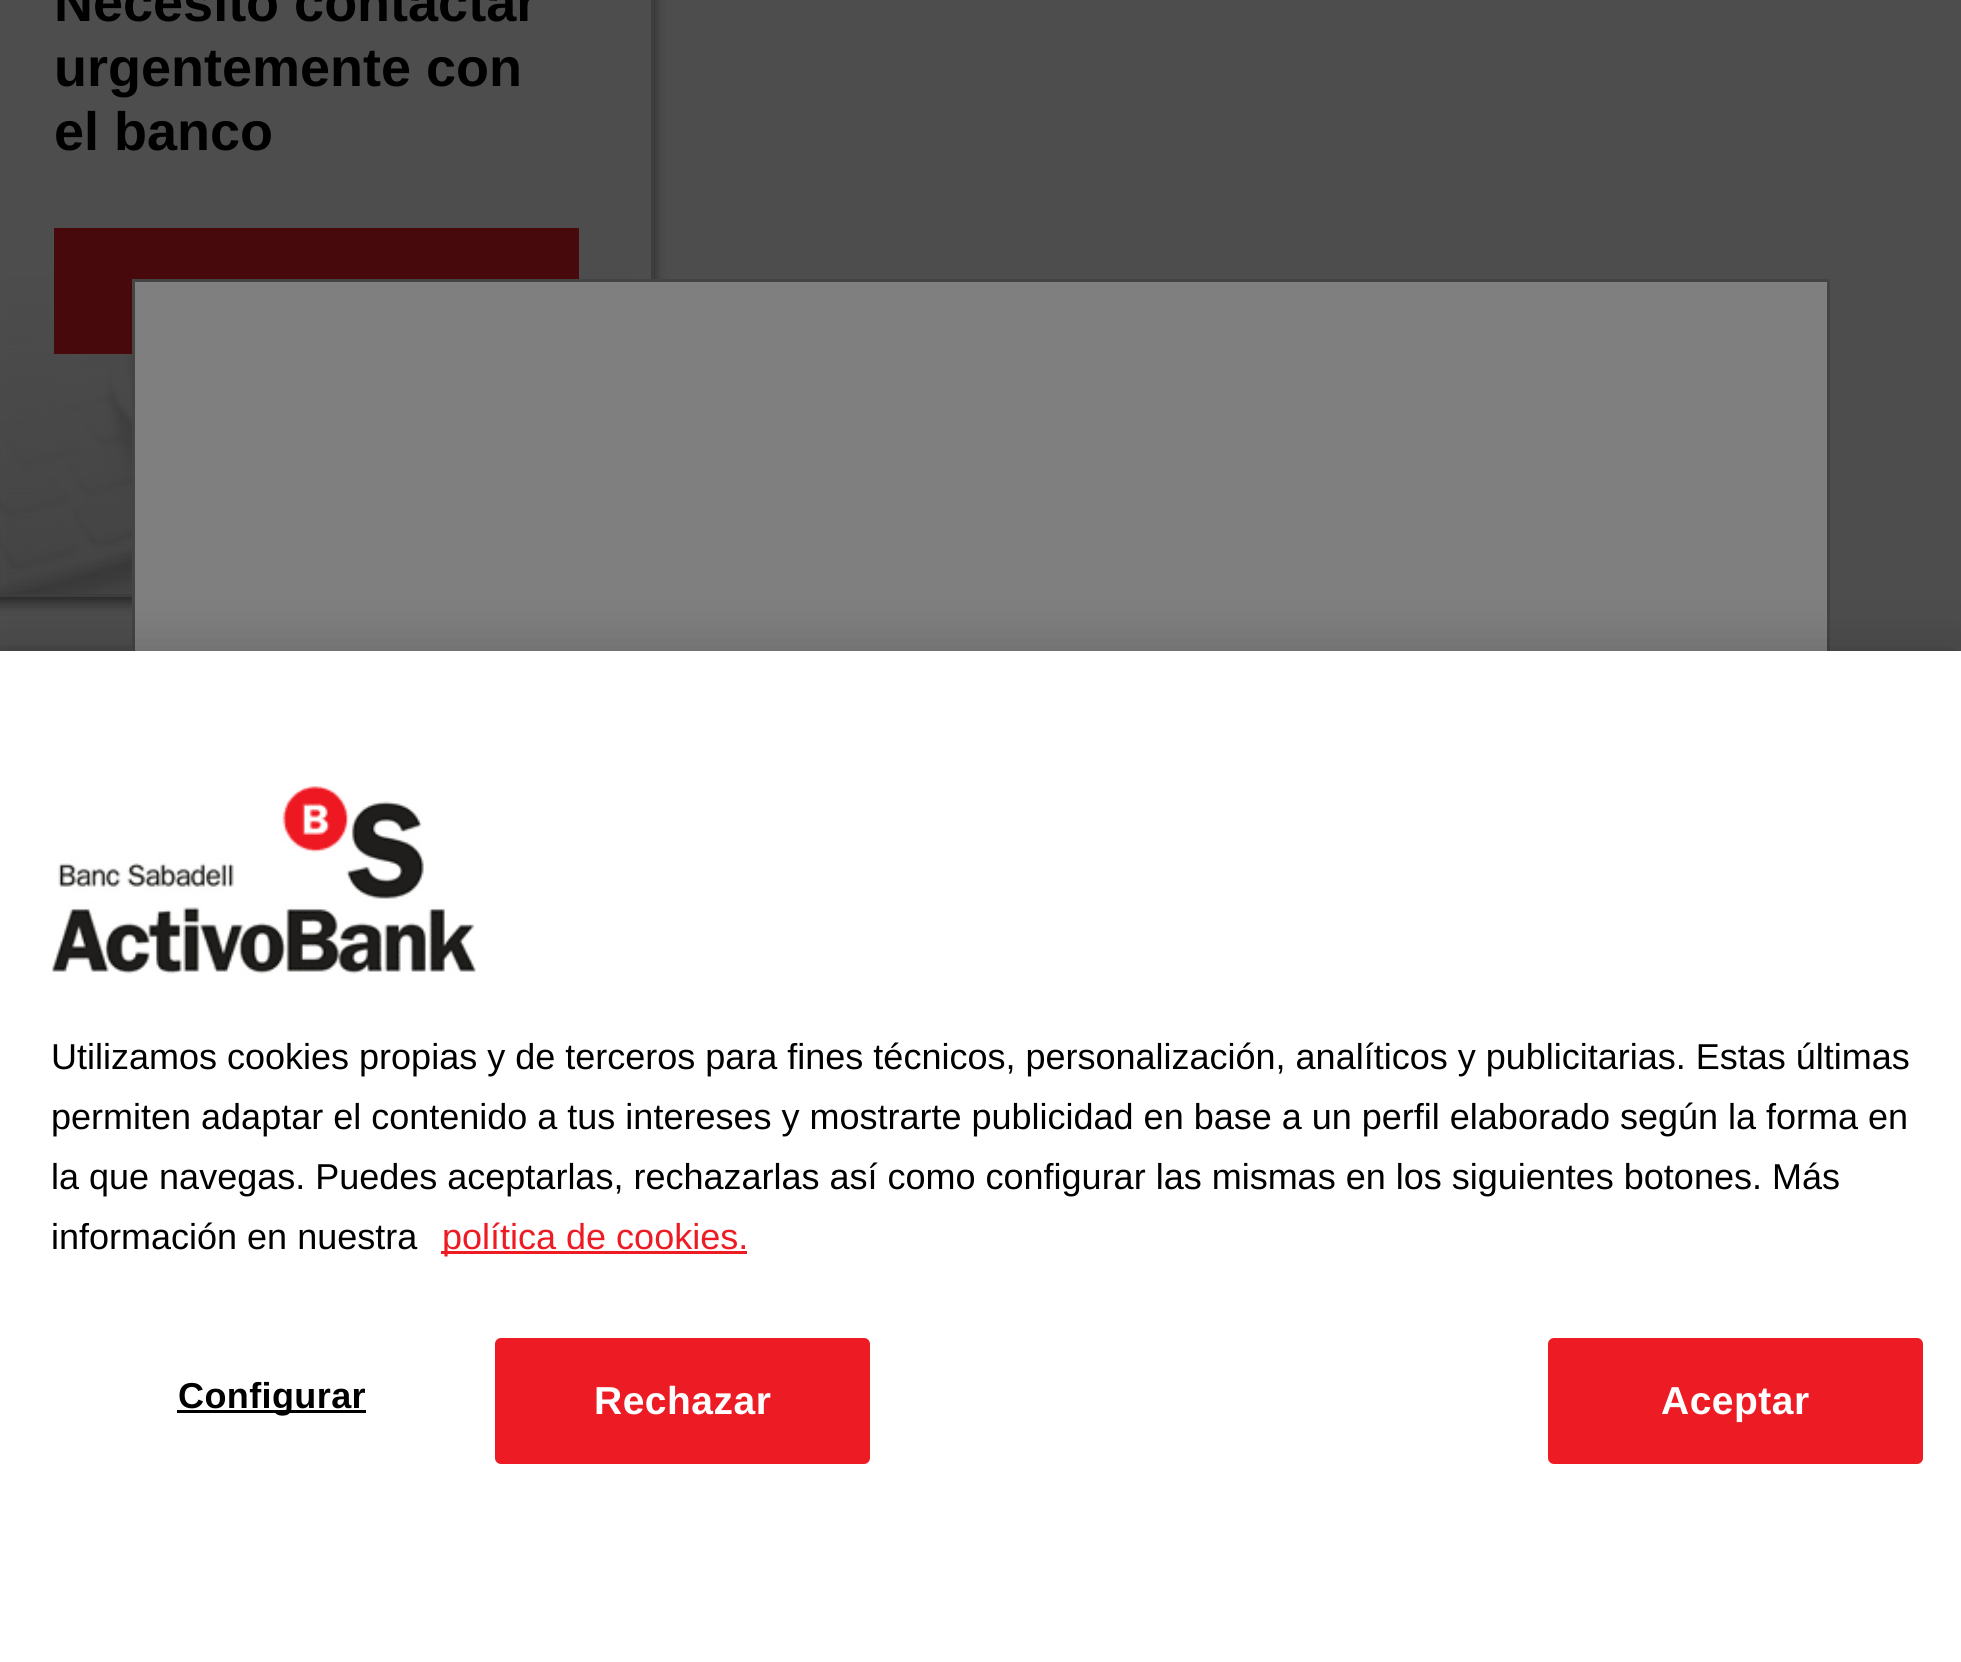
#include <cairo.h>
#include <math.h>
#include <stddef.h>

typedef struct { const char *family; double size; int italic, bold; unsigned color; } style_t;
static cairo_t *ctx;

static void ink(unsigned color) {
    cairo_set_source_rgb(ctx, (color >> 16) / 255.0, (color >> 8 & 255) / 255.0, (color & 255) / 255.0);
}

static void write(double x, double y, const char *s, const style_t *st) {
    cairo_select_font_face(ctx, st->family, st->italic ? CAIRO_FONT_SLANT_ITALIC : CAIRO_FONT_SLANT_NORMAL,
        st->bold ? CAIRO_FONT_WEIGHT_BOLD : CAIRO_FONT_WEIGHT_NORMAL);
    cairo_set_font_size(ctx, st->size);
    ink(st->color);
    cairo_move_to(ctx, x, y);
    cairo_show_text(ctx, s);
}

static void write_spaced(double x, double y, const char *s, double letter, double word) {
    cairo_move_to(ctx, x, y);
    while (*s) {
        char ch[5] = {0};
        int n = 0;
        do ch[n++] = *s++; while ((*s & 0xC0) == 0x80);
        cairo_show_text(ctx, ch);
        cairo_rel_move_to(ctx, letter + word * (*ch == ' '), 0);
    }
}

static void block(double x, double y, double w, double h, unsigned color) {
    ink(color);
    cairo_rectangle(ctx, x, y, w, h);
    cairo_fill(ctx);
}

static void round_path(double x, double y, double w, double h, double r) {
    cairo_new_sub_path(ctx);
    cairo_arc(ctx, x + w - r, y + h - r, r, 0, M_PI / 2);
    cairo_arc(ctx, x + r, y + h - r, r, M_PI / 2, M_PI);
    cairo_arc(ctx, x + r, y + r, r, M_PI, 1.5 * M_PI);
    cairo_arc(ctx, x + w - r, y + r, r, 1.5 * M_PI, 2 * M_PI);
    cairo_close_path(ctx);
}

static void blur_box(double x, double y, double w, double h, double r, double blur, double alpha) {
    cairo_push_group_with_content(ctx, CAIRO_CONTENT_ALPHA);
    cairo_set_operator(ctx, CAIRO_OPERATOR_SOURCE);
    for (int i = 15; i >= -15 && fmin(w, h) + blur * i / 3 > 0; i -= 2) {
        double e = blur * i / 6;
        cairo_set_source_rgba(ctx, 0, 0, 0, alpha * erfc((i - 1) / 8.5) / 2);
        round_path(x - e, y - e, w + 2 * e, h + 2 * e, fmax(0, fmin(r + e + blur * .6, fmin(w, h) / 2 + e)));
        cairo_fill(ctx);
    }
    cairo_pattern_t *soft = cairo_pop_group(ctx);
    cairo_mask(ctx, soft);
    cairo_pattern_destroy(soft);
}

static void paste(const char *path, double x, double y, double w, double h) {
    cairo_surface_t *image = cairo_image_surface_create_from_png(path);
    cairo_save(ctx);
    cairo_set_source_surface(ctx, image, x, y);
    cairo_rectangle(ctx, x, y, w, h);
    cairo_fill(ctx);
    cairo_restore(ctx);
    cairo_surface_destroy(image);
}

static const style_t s1 = {"Liberation Sans", 54, 0, 1, 0x000000};
static const style_t s2 = {"Liberation Sans", 36, 0, 0, 0x000000};
static const style_t s3 = {"Liberation Sans", 36, 0, 0, 0xed1c24};

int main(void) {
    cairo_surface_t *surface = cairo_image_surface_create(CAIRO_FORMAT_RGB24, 1961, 1662);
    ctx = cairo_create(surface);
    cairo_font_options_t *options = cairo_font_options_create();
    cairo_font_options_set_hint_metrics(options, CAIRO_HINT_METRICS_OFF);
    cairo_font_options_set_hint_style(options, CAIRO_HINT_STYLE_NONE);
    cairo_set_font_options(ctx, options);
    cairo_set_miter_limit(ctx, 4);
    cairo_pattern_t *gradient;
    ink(0x4d4d4d);
    cairo_paint(ctx);
    cairo_save(ctx);
    cairo_set_fill_rule(ctx, CAIRO_FILL_RULE_EVEN_ODD);
    cairo_new_path(ctx);
    cairo_move_to(ctx, 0, 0);
    cairo_line_to(ctx, 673, 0);
    cairo_line_to(ctx, 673, 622);
    cairo_line_to(ctx, 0, 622);
    cairo_close_path(ctx);
    cairo_move_to(ctx, -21, -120);
    cairo_line_to(ctx, 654, -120);
    cairo_line_to(ctx, 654, 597);
    cairo_line_to(ctx, -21, 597);
    cairo_close_path(ctx);
    cairo_clip(ctx);
    ink(0x000000);
    blur_box(-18, -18, 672, 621, 0, 6, 0.5);
    cairo_restore(ctx);
    cairo_rectangle(ctx, -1.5, -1.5, 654, 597);
    ink(0x3d3d3d);
    cairo_set_line_width(ctx, 3);
    cairo_stroke(ctx);
    write(54, 21, "Necesito contactar", &s1);
    write(54, 86, "urgentemente con", &s1);
    write(54, 150, "el banco", &s1);
    paste("pic1.png", 0, 265, 646, 329);
    gradient = cairo_pattern_create_linear(-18, 261, -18, 621);
    cairo_pattern_add_color_stop_rgba(gradient, 0, 0.302, 0.302, 0.302, 1);
    cairo_pattern_add_color_stop_rgba(gradient, 1, 0.302, 0.302, 0.302, 0);
    cairo_set_source(ctx, gradient);
    cairo_pattern_destroy(gradient);
    cairo_rectangle(ctx, 0, 265, 646, 329);
    cairo_fill(ctx);
    block(54, 228, 525, 126, 0x47090b);
    block(0, 645, 132, 6, 0x494949);
    block(135, 282, 1692, 369, 0x7f7f7f);
    cairo_rectangle(ctx, 133.5, 280.5, 1695, 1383);
    ink(0x444444);
    cairo_stroke(ctx);
    ink(0x000000);
    blur_box(0, 651, 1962, 1011, 0, 27, 0.2);
    block(0, 651, 1961, 1011, 0xffffff);
    paste("pic2.png", 51, 786, 425, 188);
    write(51, 1069, "Utilizamos cookies propias y de terceros para fines técnicos, personalización, analíticos y publicitarias. Estas últimas", &s2);
    write(51, 1129, "permiten adaptar el contenido a tus intereses y mostrarte publicidad en base a un perfil elaborado según la forma en", &s2);
    write(51, 1189, "la que navegas. Puedes aceptarlas, rechazarlas así como configurar las mismas en los siguientes botones. Más", &s2);
    write(51, 1249, "información en nuestra", &s2);
    block(441, 1251, 306, 3, 0xed1c24);
    write(442, 1249, "política de cookies.", &s3);
    block(177, 1410, 189, 3, 0x000000);
    cairo_select_font_face(ctx, "Liberation Sans", CAIRO_FONT_SLANT_NORMAL, CAIRO_FONT_WEIGHT_BOLD);
    write_spaced(178, 1408, "Configurar", 0.4, 0);
    ink(0xed1c24);
    round_path(496.5, 1339.5, 372, 123, 4.5);
    cairo_fill_preserve(ctx);
    cairo_stroke(ctx);
    cairo_set_font_size(ctx, 39);
    ink(0xffffff);
    write_spaced(594, 1414, "Rechazar", 0.5, 0);
    ink(0xed1c24);
    round_path(1549.5, 1339.5, 372, 123, 4.5);
    cairo_fill_preserve(ctx);
    cairo_stroke(ctx);
    ink(0xffffff);
    write_spaced(1661, 1414, "Aceptar", 0.5, 0);
    cairo_surface_write_to_png(surface, "screenshot.png");
    cairo_font_options_destroy(options);
    cairo_destroy(ctx);
    cairo_surface_destroy(surface);
    return 0;
}
